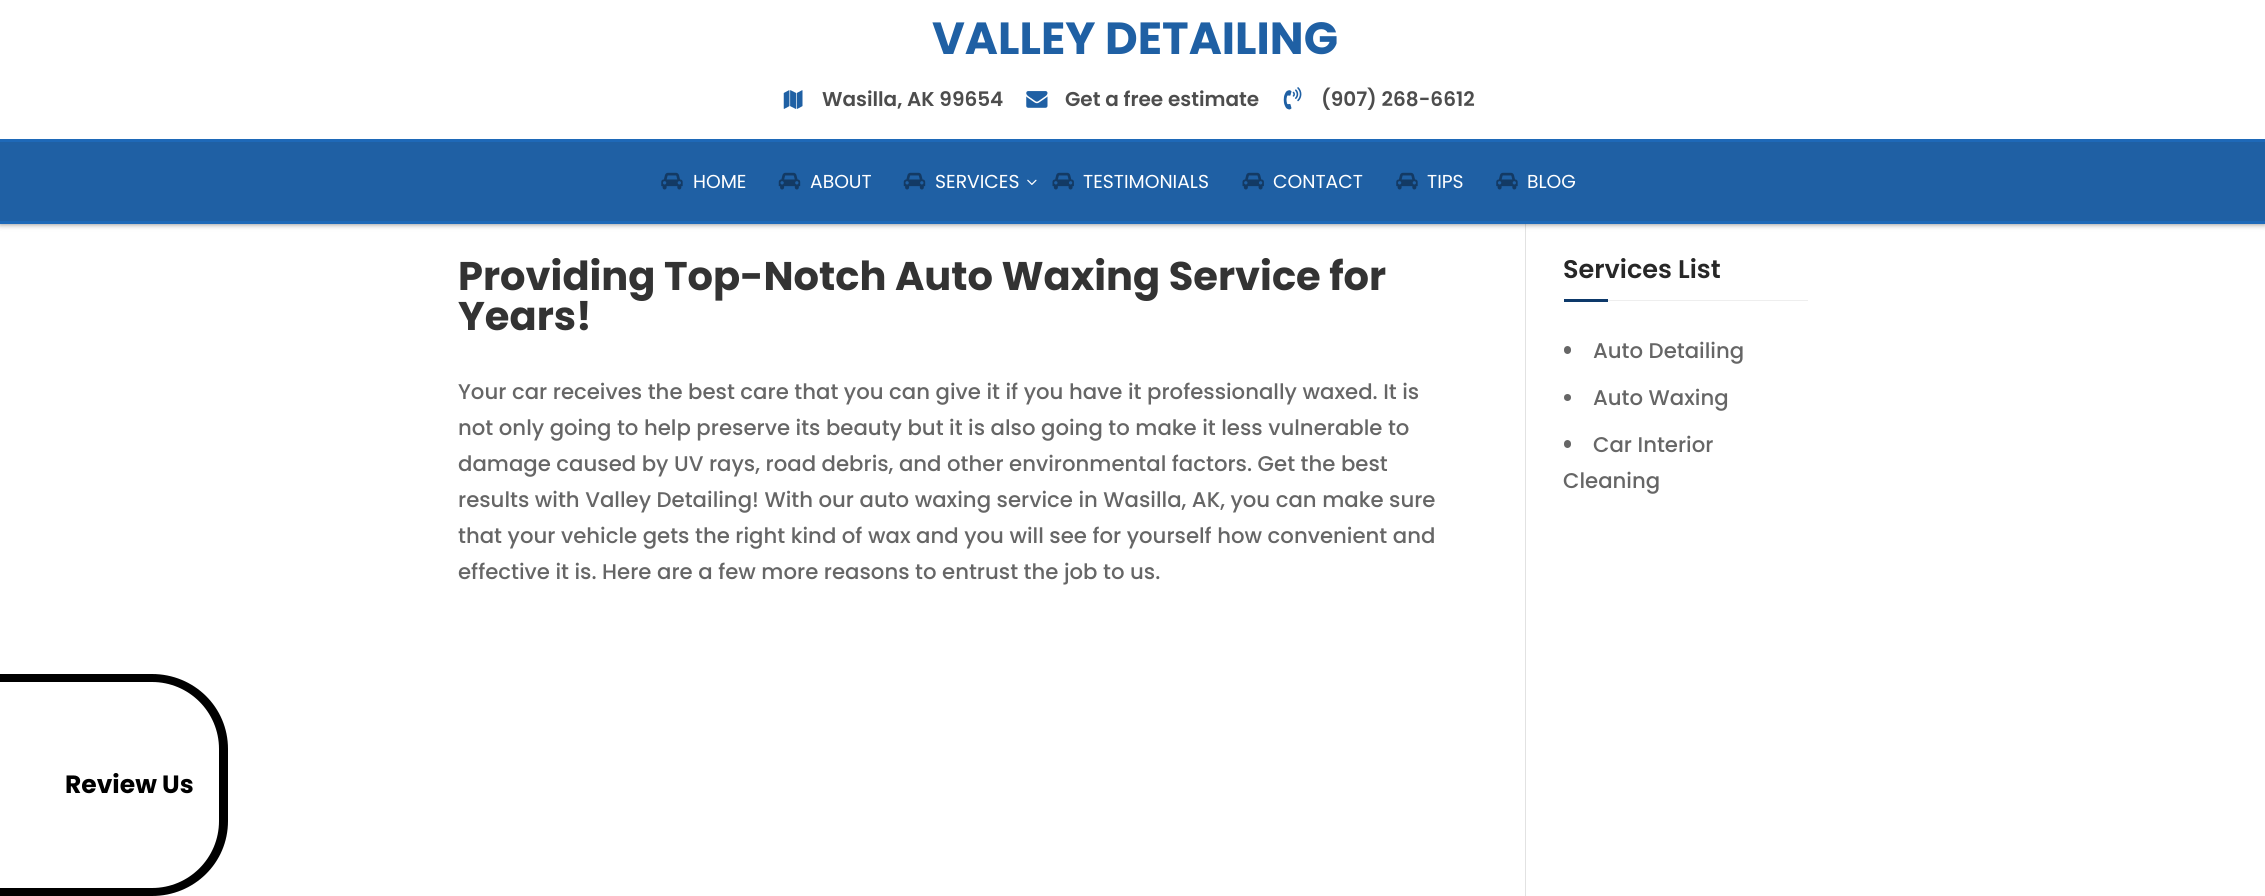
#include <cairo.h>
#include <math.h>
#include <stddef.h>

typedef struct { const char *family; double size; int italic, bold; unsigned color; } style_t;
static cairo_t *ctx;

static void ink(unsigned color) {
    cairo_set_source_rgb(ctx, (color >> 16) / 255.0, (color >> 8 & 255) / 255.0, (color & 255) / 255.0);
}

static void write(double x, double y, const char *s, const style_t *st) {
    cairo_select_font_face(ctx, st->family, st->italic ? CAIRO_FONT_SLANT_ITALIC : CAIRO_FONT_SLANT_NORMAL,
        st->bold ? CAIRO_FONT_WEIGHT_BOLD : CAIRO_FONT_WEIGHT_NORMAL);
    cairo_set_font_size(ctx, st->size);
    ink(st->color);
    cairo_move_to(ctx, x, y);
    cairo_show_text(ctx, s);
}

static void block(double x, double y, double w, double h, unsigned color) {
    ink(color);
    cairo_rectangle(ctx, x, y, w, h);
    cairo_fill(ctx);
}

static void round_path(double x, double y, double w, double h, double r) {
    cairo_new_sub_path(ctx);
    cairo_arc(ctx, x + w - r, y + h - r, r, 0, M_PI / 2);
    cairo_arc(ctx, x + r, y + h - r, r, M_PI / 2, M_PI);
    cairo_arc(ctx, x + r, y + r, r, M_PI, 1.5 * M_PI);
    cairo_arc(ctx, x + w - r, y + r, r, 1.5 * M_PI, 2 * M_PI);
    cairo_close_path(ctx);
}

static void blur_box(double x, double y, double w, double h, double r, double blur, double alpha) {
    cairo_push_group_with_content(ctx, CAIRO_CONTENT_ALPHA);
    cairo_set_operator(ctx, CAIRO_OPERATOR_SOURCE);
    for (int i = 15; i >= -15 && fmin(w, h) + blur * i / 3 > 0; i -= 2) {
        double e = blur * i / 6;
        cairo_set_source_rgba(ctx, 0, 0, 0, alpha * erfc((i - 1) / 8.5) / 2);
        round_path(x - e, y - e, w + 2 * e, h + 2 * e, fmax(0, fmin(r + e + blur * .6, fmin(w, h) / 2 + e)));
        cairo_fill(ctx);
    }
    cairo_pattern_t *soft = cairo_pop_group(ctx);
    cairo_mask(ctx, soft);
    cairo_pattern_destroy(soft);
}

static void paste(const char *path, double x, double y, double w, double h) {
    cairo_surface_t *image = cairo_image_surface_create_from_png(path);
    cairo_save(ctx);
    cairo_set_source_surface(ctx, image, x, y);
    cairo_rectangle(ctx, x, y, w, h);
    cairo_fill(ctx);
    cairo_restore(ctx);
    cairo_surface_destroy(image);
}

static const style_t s1 = {"Poppins", 45, 0, 1, 0x1f60a4};
static const style_t s2 = {"Poppins SemiBold", 20, 0, 0, 0x4d4d4d};
static const style_t s3 = {"Poppins", 18.75, 0, 0, 0xffffff};
static const style_t s4 = {"Poppins", 40, 0, 1, 0x333333};
static const style_t s5 = {"Poppins Medium", 21.25, 0, 0, 0x666666};
static const style_t s6 = {"Poppins SemiBold", 25.5, 0, 0, 0x272727};
static const style_t s7 = {"Poppins", 25, 0, 1, 0x000000};

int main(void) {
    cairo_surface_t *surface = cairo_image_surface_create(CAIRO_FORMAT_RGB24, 2265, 896);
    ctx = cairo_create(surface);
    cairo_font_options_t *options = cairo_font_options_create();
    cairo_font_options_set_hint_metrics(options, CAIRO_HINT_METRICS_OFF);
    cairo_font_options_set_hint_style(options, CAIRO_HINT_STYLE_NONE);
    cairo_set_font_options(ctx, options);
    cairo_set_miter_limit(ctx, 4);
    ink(0xffffff);
    cairo_paint(ctx);
    block(1525, 224, 1, 672, 0xe2e2e2);
    ink(0x000000);
    blur_box(0, 0, 2265, 224, 0, 3, 0.5);
    block(0, 0, 2265, 139, 0xffffff);
    write(932, 54, "VALLEY DETAILING", &s1);
    paste("pic1.png", 783, 90, 20, 19);
    write(822, 106, "Wasilla, AK 99654", &s2);
    paste("pic2.png", 1026, 91, 22, 17);
    write(1065, 106, "Get a free estimate", &s2);
    paste("pic3.png", 1283, 87, 19, 23);
    write(1321, 106, "(907) 268-6612", &s2);
    block(0, 142, 2265, 79, 0x1f60a4);
    block(0, 139, 2265, 3, 0x1e69b8);
    block(0, 221, 2265, 3, 0x1e69b8);
    paste("pic4.png", 661, 172, 22, 18);
    write(693, 188, "HOME", &s3);
    paste("pic5.png", 778, 172, 23, 18);
    write(810, 188, "ABOUT", &s3);
    paste("pic5.png", 903, 172, 23, 18);
    write(935, 188, "SERVICES", &s3);
    paste("pic6.png", 1027, 179, 10, 6);
    paste("pic7.png", 1052, 172, 22, 18);
    write(1083, 188, "TESTIMONIALS", &s3);
    paste("pic7.png", 1242, 172, 22, 18);
    write(1273, 188, "CONTACT", &s3);
    paste("pic4.png", 1396, 172, 22, 18);
    write(1427, 188, "TIPS", &s3);
    paste("pic4.png", 1496, 172, 22, 18);
    write(1527, 188, "BLOG", &s3);
    write(458, 290, "Providing Top-Notch Auto Waxing Service for", &s4);
    write(458, 330, "Years!", &s4);
    write(458, 399, "Your car receives the best care that you can give it if you have it professionally waxed. It is", &s5);
    write(458, 435, "not only going to help preserve its beauty but it is also going to make it less vulnerable to", &s5);
    write(458, 471, "damage caused by UV rays, road debris, and other environmental factors. Get the best", &s5);
    write(458, 507, "results with Valley Detailing! With our auto waxing service in Wasilla, AK, you can make sure", &s5);
    write(458, 543, "that your vehicle gets the right kind of wax and you will see for yourself how convenient and", &s5);
    write(458, 579, "effective it is. Here are a few more reasons to entrust the job to us.", &s5);
    block(1608, 300, 200, 1, 0xeeeeee);
    write(1563, 278, "Services List", &s6);
    block(1564, 299, 44, 3, 0x0d396a);
    ink(0x666666);
    round_path(1564, 346, 7, 8, 3.5);
    cairo_fill(ctx);
    write(1593, 358, "Auto Detailing", &s5);
    cairo_new_path(ctx);
    cairo_arc(ctx, 1567.5, 397.5, 3.5, 0, 2 * M_PI);
    cairo_fill(ctx);
    write(1593, 405, "Auto Waxing", &s5);
    round_path(1564, 440, 7, 8, 3.5);
    cairo_fill(ctx);
    write(1593, 452, "Car Interior", &s5);
    write(1563, 488, "Cleaning", &s5);
    ink(0x000000);
    cairo_set_fill_rule(ctx, CAIRO_FILL_RULE_EVEN_ODD);
    cairo_new_path(ctx);
    cairo_move_to(ctx, 0, 674);
    cairo_line_to(ctx, 152, 674);
    cairo_curve_to(ctx, 194, 674, 228, 707, 228, 749);
    cairo_line_to(ctx, 228, 821);
    cairo_curve_to(ctx, 228, 863, 194, 896, 152, 896);
    cairo_line_to(ctx, 0, 896);
    cairo_close_path(ctx);
    cairo_move_to(ctx, 0, 682);
    cairo_line_to(ctx, 152, 682);
    cairo_curve_to(ctx, 189, 682, 219, 712, 219, 749);
    cairo_line_to(ctx, 219, 821);
    cairo_curve_to(ctx, 219, 858, 189, 888, 152, 888);
    cairo_line_to(ctx, 0, 888);
    cairo_close_path(ctx);
    cairo_fill(ctx);
    write(65, 793, "Review Us", &s7);
    cairo_surface_write_to_png(surface, "screenshot.png");
    cairo_font_options_destroy(options);
    cairo_destroy(ctx);
    cairo_surface_destroy(surface);
    return 0;
}
